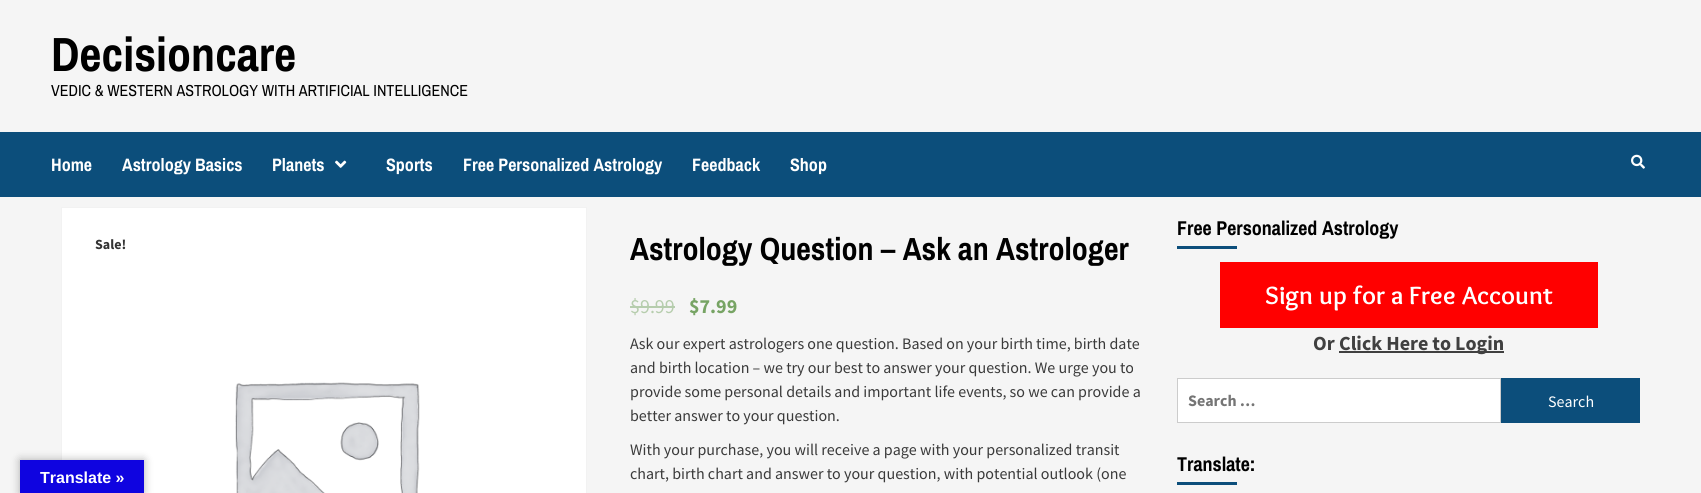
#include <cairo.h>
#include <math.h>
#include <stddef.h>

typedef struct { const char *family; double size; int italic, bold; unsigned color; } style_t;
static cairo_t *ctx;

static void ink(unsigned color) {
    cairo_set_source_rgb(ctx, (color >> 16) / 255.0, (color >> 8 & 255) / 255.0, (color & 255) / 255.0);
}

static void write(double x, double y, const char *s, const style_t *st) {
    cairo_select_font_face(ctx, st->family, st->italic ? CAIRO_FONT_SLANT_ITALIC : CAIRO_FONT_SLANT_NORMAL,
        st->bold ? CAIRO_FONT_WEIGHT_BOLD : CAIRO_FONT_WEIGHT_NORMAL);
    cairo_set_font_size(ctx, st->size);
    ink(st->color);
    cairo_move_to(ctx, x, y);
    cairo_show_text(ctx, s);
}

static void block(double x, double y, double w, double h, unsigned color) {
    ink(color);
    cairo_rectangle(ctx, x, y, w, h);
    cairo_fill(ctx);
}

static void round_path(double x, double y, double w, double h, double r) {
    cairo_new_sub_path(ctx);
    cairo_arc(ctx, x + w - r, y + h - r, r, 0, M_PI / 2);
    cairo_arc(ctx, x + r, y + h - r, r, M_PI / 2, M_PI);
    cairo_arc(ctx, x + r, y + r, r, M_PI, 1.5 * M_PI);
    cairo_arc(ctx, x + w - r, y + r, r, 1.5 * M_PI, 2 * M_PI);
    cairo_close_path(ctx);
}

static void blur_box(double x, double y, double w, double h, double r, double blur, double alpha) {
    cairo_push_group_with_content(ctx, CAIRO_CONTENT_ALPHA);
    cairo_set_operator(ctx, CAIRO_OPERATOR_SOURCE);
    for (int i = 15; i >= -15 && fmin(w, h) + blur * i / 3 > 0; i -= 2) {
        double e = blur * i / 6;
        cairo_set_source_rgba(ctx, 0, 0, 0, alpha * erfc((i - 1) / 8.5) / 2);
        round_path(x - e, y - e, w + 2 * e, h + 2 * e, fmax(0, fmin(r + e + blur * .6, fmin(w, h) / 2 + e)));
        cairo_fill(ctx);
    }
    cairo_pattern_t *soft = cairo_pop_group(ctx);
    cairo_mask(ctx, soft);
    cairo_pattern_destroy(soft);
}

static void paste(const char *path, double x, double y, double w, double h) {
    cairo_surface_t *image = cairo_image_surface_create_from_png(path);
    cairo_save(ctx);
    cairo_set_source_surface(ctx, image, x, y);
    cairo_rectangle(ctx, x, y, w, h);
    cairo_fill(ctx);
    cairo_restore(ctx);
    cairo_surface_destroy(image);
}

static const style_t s1 = {"Archivo Narrow", 48, 0, 1, 0x000000};
static const style_t s2 = {"Archivo Narrow", 16, 0, 0, 0x000000};
static const style_t s3 = {"Archivo Narrow", 18, 0, 1, 0xffffff};
static const style_t s4 = {"Archivo Narrow", 32, 0, 1, 0x000000};
static const style_t s5 = {"Source Sans Pro", 20, 0, 0, 0xb6cdad};
static const style_t s6 = {"Source Sans Pro", 20, 0, 1, 0x77a464};
static const style_t s7 = {"Source Sans Pro", 16, 0, 0, 0x3a3a3a};
static const style_t s8 = {"Source Sans Pro", 14, 0, 1, 0x333333};
static const style_t s9 = {"Archivo Narrow", 20, 0, 1, 0x000000};
static const style_t s10 = {"Source Sans Pro", 20, 0, 1, 0x404040};
static const style_t s11 = {"Source Sans Pro", 16, 0, 1, 0x757575};
static const style_t s12 = {"Source Sans Pro", 16, 0, 0, 0xffffff};
static const style_t s13 = {"Liberation Sans", 16, 0, 1, 0xffffff};

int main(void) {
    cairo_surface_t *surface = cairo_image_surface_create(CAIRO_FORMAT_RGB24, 1701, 493);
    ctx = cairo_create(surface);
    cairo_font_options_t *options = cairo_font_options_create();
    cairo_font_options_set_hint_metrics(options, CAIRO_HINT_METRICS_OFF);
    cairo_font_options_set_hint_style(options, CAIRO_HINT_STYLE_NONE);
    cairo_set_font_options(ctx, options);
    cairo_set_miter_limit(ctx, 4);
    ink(0xf5f5f5);
    cairo_paint(ctx);
    write(51, 71, "Decisioncare", &s1);
    write(51, 96, "VEDIC & WESTERN ASTROLOGY WITH ARTIFICIAL INTELLIGENCE", &s2);
    block(0, 132, 1701, 65, 0x0c4e7b);
    write(51, 171, "Home", &s3);
    write(122, 171, "Astrology Basics", &s3);
    write(272, 171, "Planets", &s3);
    paste("pic1.png", 335, 160, 12, 8);
    write(386, 171, "Sports", &s3);
    write(463, 171, "Free Personalized Astrology", &s3);
    write(692, 171, "Feedback", &s3);
    write(790, 171, "Shop", &s3);
    paste("pic2.png", 1631, 154, 14, 15);
    cairo_rectangle(ctx, 61.5, 207.5, 525, 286);
    ink(0xf2f2f2);
    cairo_set_line_width(ctx, 1);
    cairo_stroke(ctx);
    paste("pic3.png", 62, 208, 524, 285);
    write(630, 260, "Astrology Question – Ask an Astrologer", &s4);
    write(630, 313, "$9.99", &s5);
    block(630, 306, 45, 2, 0xb6cdad);
    write(689, 313, "$7.99", &s6);
    write(630, 349, "Ask our expert astrologers one question. Based on your birth time, birth date", &s7);
    write(630, 373, "and birth location – we try our best to answer your question. We urge you to", &s7);
    write(630, 397, "provide some personal details and important life events, so we can provide a", &s7);
    write(630, 421, "better answer to your question.", &s7);
    write(630, 455, "With your purchase, you will receive a page with your personalized transit", &s7);
    write(630, 479, "chart, birth chart and answer to your question, with potential outlook (one", &s7);
    write(95, 249, "Sale!", &s8);
    write(1177, 235, "Free Personalized Astrology", &s9);
    block(1177, 246, 60, 3, 0x0c4e7b);
    paste("pic4.png", 1220, 262, 378, 66);
    write(1313, 350, "Or", &s10);
    block(1339, 351, 165, 2, 0x404040);
    write(1339, 350, "Click Here to Login", &s10);
    ink(0xffffff);
    cairo_rectangle(ctx, 1177.5, 378.5, 323, 44);
    cairo_fill_preserve(ctx);
    ink(0xcccccc);
    cairo_stroke(ctx);
    write(1188, 406, "Search …", &s11);
    block(1501, 378, 139, 45, 0x0c4e7b);
    write(1548, 407, "Search", &s12);
    write(1177, 471, "Translate:", &s9);
    block(1177, 482, 60, 3, 0x0c4e7b);
    ink(0x000000);
    blur_box(20, 460, 124, 33, 0, 4.5, 0.3);
    block(20, 460, 124, 33, 0x0f04e0);
    write(40, 483, "Translate »", &s13);
    cairo_surface_write_to_png(surface, "screenshot.png");
    cairo_font_options_destroy(options);
    cairo_destroy(ctx);
    cairo_surface_destroy(surface);
    return 0;
}
